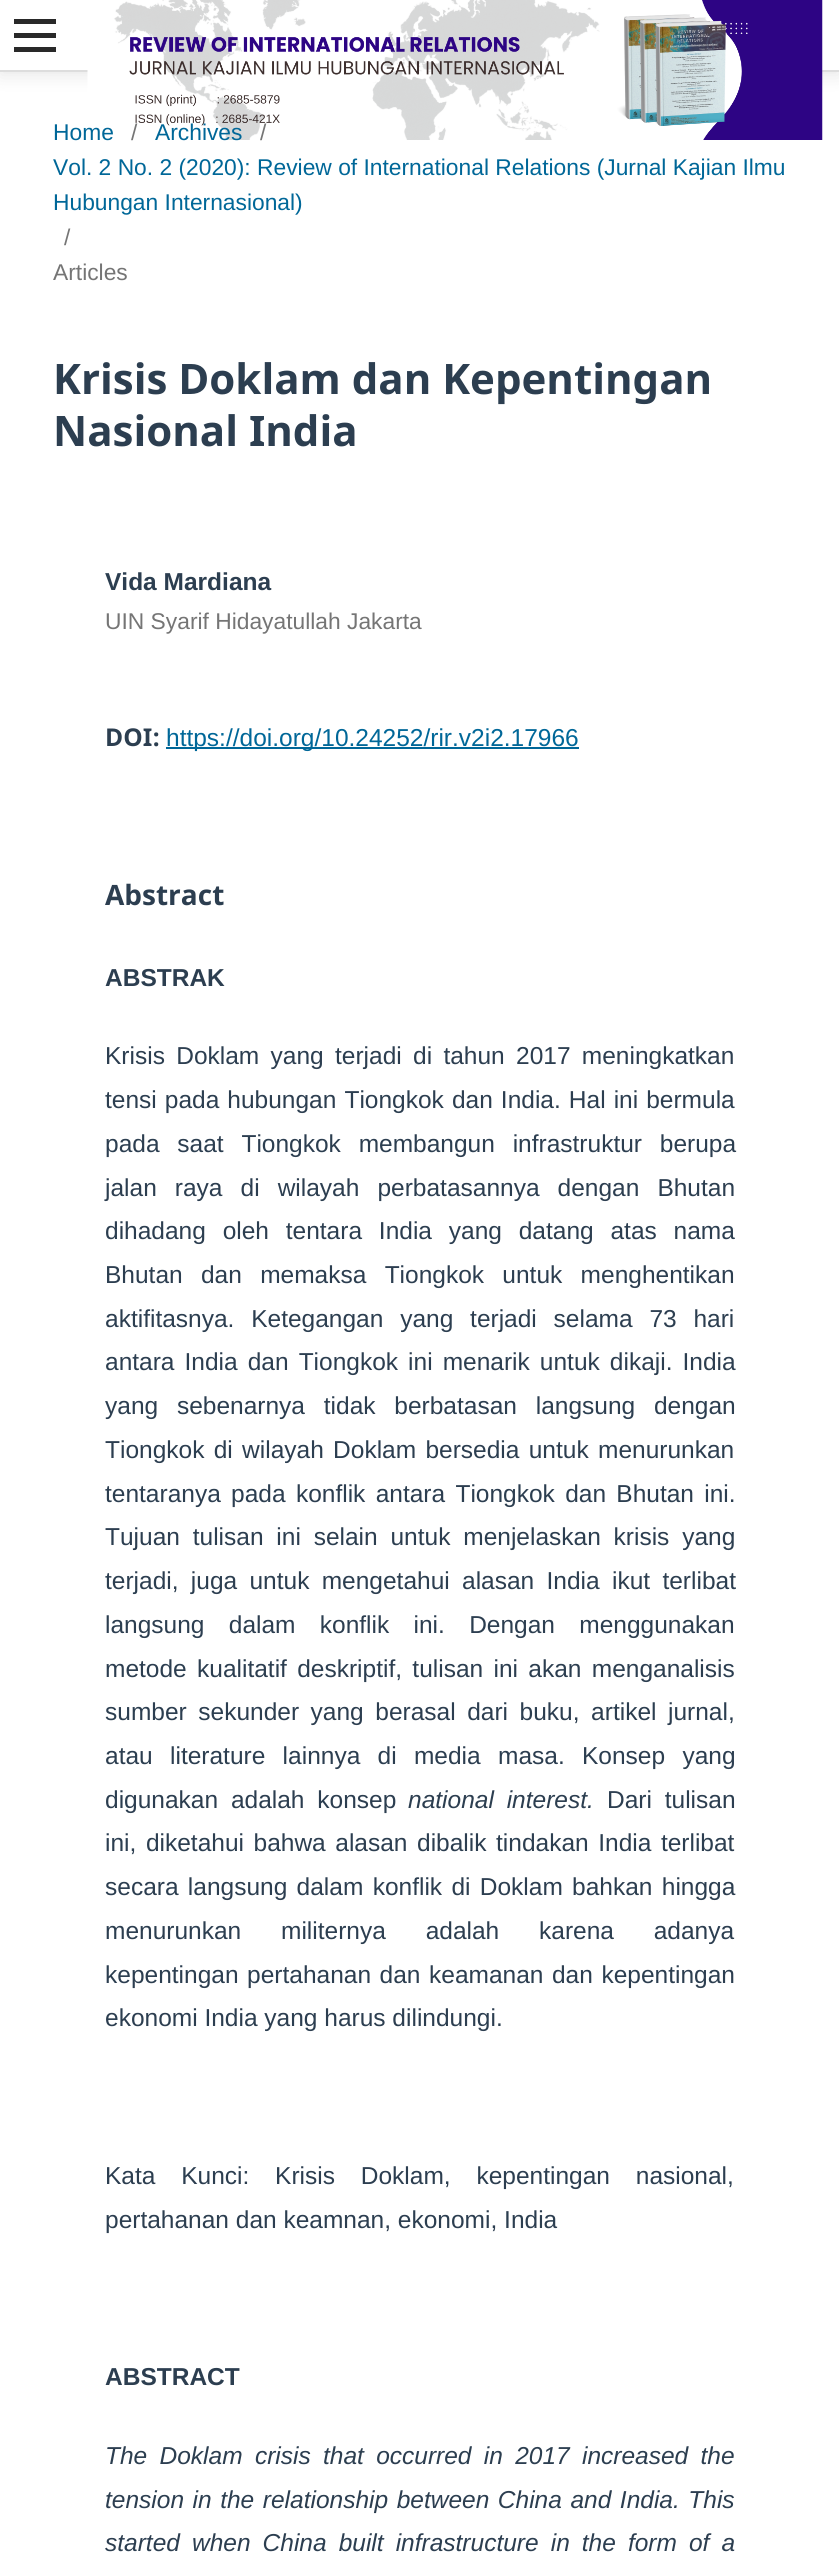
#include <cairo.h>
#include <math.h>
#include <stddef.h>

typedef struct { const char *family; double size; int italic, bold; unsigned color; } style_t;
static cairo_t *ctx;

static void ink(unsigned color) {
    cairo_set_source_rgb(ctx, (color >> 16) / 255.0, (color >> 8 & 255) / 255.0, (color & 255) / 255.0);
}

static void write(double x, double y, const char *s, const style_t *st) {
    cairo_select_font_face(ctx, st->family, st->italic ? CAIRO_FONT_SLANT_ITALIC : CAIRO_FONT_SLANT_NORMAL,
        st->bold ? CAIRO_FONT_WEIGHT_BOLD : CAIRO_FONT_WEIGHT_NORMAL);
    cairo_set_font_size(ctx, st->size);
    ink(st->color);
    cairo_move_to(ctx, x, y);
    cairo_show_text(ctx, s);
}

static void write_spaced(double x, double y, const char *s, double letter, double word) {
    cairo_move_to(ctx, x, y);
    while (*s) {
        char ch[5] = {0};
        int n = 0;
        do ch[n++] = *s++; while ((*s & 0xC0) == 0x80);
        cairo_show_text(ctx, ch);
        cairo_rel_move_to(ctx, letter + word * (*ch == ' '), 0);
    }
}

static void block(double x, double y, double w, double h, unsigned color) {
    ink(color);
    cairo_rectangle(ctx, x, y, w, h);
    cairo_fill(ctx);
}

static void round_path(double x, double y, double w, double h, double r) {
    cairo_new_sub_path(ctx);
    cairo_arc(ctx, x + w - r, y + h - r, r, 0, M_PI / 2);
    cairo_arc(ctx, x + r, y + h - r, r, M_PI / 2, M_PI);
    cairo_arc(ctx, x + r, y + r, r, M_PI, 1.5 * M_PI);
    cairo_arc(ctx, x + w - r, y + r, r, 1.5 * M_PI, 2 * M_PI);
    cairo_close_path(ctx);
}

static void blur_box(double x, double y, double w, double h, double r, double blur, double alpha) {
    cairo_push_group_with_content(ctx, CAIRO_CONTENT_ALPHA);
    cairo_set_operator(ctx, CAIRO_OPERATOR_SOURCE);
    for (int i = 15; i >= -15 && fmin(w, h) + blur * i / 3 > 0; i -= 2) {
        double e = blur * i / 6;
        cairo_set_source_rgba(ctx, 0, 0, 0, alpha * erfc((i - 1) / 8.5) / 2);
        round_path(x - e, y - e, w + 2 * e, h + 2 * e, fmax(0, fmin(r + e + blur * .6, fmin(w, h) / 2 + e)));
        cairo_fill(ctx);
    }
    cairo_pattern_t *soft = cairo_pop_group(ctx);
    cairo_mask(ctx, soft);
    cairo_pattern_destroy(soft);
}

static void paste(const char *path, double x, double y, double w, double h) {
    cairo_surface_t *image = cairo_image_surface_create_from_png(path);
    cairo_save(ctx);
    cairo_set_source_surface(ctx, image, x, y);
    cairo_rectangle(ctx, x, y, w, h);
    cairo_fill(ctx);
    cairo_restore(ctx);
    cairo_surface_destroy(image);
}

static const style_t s1 = {"Liberation Sans", 22.8, 0, 0, 0x006798};
static const style_t s2 = {"Liberation Sans", 22.8, 0, 0, 0x757575};
static const style_t s3 = {"Noto Sans", 42, 0, 1, 0x2c3e50};
static const style_t s4 = {"Liberation Sans", 24.5, 0, 1, 0x2c3e50};
static const style_t s5 = {"Noto Sans", 24.5, 0, 1, 0x2c3e50};
static const style_t s6 = {"Liberation Sans", 24.5, 0, 0, 0x006798};
static const style_t s7 = {"Noto Sans", 28, 0, 1, 0x2c3e50};
static const style_t s8 = {"Liberation Sans", 24.5, 0, 0, 0x2c3e50};

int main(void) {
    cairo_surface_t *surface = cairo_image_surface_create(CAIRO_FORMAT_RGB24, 839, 2574);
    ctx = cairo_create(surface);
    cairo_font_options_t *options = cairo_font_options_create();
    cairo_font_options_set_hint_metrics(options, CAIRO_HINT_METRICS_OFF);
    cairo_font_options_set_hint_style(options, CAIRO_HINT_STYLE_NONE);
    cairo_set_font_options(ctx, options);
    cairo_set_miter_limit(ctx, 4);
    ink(0xffffff);
    cairo_paint(ctx);
    ink(0x000000);
    blur_box(0, 4, 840, 71, 0, 9, 0.1);
    block(0, 0, 839, 70, 0xffffff);
    block(0, 70, 839, 2, 0xdddddd);
    block(14, 47, 42, 5, 0x292929);
    block(14, 19, 42, 5, 0x292929);
    block(14, 33, 42, 5, 0x292929);
    paste("pic1.png", 87, 0, 736, 140);
    write(53, 140, "Home", &s1);
    write(131, 140, "/", &s2);
    write(155, 140, "Archives", &s1);
    write(260, 140, "/", &s2);
    write(53, 175, "Vol. 2 No. 2 (2020): Review of International Relations (Jurnal Kajian Ilmu", &s1);
    write(53, 210, "Hubungan Internasional)", &s1);
    write(64, 245, "/", &s2);
    write(53, 280, "Articles", &s2);
    write(53, 394, "Krisis Doklam dan Kepentingan", &s3);
    write(53, 446, "Nasional India", &s3);
    write(105, 590, "Vida Mardiana", &s4);
    write(105, 629, "UIN Syarif Hidayatullah Jakarta", &s2);
    write(105, 746, "DOI:", &s5);
    block(166, 747, 413, 2, 0x006798);
    write(166, 746, "https://doi.org/10.24252/rir.v2i2.17966", &s6);
    write(105, 905, "Abstract", &s7);
    write(105, 986, "ABSTRAK", &s4);
    cairo_select_font_face(ctx, "Liberation Sans", CAIRO_FONT_SLANT_NORMAL, CAIRO_FONT_WEIGHT_NORMAL);
    write_spaced(105, 1064, "Krisis Doklam yang terjadi di tahun 2017 meningkatkan", 0, 4.5);
    write_spaced(105, 1108, "tensi pada hubungan Tiongkok dan India. Hal ini bermula", 0, 1.25);
    write_spaced(105, 1152, "pada saat Tiongkok membangun infrastruktur berupa", 0, 11);
    write_spaced(105, 1196, "jalan raya di wilayah perbatasannya dengan Bhutan", 0, 11.25);
    write_spaced(105, 1239, "dihadang oleh tentara India yang datang atas nama", 0, 10);
    write_spaced(105, 1283, "Bhutan dan memaksa Tiongkok untuk menghentikan", 0, 11.5);
    write_spaced(105, 1327, "aktifitasnya. Ketegangan yang terjadi selama 73 hari", 0, 10);
    write_spaced(105, 1370, "antara India dan Tiongkok ini menarik untuk dikaji. India", 0, 3.25);
    write_spaced(105, 1414, "yang sebenarnya tidak berbatasan langsung dengan", 0, 12);
    write_spaced(105, 1458, "Tiongkok di wilayah Doklam bersedia untuk menurunkan", 0, 2.5);
    write_spaced(105, 1502, "tentaranya pada konflik antara Tiongkok dan Bhutan ini.", 0, 3.5);
    write_spaced(105, 1545, "Tujuan tulisan ini selain untuk menjelaskan krisis yang", 0, 6);
    write_spaced(105, 1589, "terjadi, juga untuk mengetahui alasan India ikut terlibat", 0, 5.5);
    write_spaced(105, 1633, "langsung dalam konflik ini. Dengan menggunakan", 0, 17.5);
    write_spaced(105, 1677, "metode kualitatif deskriptif, tulisan ini akan menganalisis", 0, 3.5);
    write_spaced(105, 1720, "sumber sekunder yang berasal dari buku, artikel jurnal,", 0, 4.75);
    write_spaced(105, 1764, "atau literature lainnya di media masa. Konsep yang", 0, 10.5);
    write_spaced(105, 1808, "digunakan adalah konsep", 0, 6);
    cairo_select_font_face(ctx, "Liberation Sans", CAIRO_FONT_SLANT_ITALIC, CAIRO_FONT_WEIGHT_NORMAL);
    write_spaced(408, 1808, "national interest.", 0, 6);
    cairo_select_font_face(ctx, "Liberation Sans", CAIRO_FONT_SLANT_NORMAL, CAIRO_FONT_WEIGHT_NORMAL);
    write_spaced(607, 1808, "Dari tulisan", 0, 6);
    write_spaced(105, 1851, "ini, diketahui bahwa alasan dibalik tindakan India terlibat", 0, 2.75);
    write_spaced(105, 1895, "secara langsung dalam konflik di Doklam bahkan hingga", 0, 2.5);
    write_spaced(105, 1939, "menurunkan militernya adalah karena adanya", 0, 33);
    write_spaced(105, 1983, "kepentingan pertahanan dan keamanan dan kepentingan", 0, 1.75);
    write(105, 2026, "ekonomi India yang harus dilindungi.", &s8);
    write_spaced(105, 2184, "Kata Kunci: Krisis Doklam, kepentingan nasional,", 0, 19);
    write(105, 2228, "pertahanan dan keamnan, ekonomi, India", &s8);
    write(105, 2385, "ABSTRACT", &s4);
    cairo_select_font_face(ctx, "Liberation Sans", CAIRO_FONT_SLANT_ITALIC, CAIRO_FONT_WEIGHT_NORMAL);
    write_spaced(105, 2464, "The Doklam crisis that occurred in 2017 increased the", 0, 5.5);
    write_spaced(105, 2508, "tension in the relationship between China and India. This", 0, 1.75);
    write_spaced(105, 2551, "started when China built infrastructure in the form of a", 0, 5.25);
    cairo_surface_write_to_png(surface, "screenshot.png");
    cairo_font_options_destroy(options);
    cairo_destroy(ctx);
    cairo_surface_destroy(surface);
    return 0;
}
